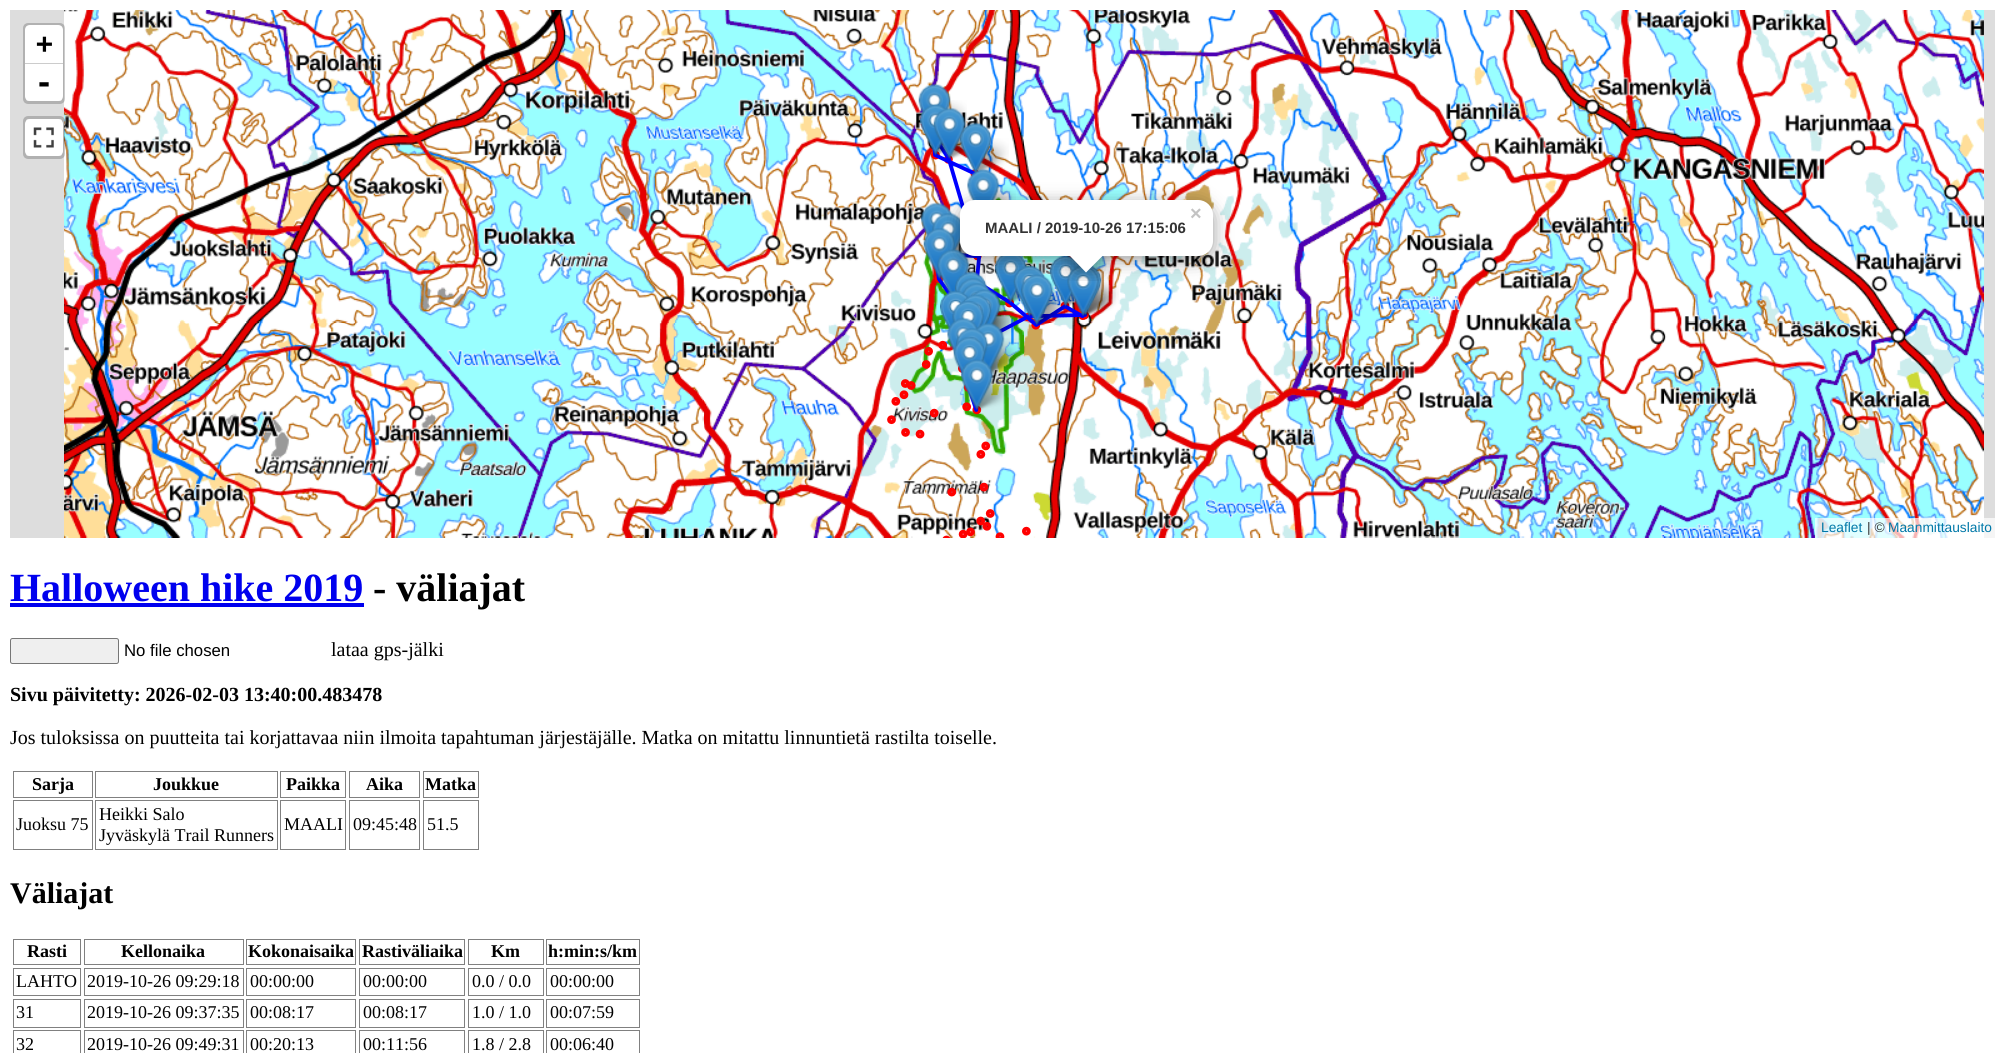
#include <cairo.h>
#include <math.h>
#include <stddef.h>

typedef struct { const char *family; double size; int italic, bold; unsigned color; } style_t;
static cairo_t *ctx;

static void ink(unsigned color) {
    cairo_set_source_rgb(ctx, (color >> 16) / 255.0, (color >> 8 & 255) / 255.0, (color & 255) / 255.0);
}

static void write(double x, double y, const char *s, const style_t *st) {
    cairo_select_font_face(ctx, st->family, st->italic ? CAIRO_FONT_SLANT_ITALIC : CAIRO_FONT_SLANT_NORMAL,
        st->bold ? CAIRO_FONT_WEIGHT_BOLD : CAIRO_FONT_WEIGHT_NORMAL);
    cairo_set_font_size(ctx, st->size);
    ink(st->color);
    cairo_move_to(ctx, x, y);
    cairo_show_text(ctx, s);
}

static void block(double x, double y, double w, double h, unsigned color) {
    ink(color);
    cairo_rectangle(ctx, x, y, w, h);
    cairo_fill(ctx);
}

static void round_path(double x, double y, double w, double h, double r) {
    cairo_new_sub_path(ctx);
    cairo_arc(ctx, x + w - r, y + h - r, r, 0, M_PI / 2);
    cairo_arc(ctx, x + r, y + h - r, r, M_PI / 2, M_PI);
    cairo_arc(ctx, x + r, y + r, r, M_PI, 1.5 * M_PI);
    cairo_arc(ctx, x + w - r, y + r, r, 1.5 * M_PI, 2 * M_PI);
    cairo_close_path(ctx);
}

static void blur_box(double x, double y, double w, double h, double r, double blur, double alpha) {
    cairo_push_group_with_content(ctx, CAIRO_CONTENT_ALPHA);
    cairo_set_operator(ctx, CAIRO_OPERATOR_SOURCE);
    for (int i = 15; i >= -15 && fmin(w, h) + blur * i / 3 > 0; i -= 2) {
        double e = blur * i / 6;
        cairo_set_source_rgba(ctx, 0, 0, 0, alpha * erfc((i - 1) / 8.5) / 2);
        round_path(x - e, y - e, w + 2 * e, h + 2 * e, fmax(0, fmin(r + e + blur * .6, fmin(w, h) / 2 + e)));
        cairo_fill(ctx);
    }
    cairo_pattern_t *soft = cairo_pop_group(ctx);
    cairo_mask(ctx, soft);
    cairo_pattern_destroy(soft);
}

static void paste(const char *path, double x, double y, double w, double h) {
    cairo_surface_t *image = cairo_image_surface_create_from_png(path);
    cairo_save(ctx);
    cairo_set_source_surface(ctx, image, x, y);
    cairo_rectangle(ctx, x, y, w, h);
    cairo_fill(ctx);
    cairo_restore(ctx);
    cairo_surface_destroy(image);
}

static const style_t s1 = {"DejaVu Sans Mono", 28, 0, 1, 0x000000};
static const style_t s2 = {"DejaVu Sans Mono", 30, 0, 1, 0x000000};
static const style_t s3 = {"Liberation Sans", 13.75, 0, 0, 0x0078a8};
static const style_t s4 = {"Liberation Sans", 13.75, 0, 0, 0x333333};
static const style_t s5 = {"Liberation Sans", 20, 0, 1, 0xc3c3c3};
static const style_t s6 = {"Liberation Sans", 15, 0, 1, 0x333333};
static const style_t s7 = {"Liberation Serif", 40, 0, 1, 0x0000ee};
static const style_t s8 = {"Liberation Serif", 40, 0, 1, 0x000000};
static const style_t s9 = {"Liberation Sans", 16.75, 0, 0, 0x000000};
static const style_t s10 = {"Liberation Serif", 20, 0, 0, 0x000000};
static const style_t s11 = {"Liberation Serif", 20, 0, 1, 0x000000};
static const style_t s12 = {"Liberation Serif", 18, 0, 1, 0x000000};
static const style_t s13 = {"Liberation Serif", 18, 0, 0, 0x000000};
static const style_t s14 = {"Liberation Serif", 30, 0, 1, 0x000000};

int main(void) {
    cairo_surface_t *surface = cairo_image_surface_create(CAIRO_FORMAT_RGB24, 1995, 1053);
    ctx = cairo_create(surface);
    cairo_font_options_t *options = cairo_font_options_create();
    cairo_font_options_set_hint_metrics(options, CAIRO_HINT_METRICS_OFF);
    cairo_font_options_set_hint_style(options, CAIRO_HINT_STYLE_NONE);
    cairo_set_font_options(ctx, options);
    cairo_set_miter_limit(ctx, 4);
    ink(0xffffff);
    cairo_paint(ctx);
    block(10, 10, 1985, 528, 0xdddddd);
    paste("pic2.png", 64, 10, 320, 313);
    round_path(24.5, 24.5, 39, 78, 3.5);
    cairo_set_source_rgba(ctx, 0, 0, 0, 0.2);
    cairo_set_line_width(ctx, 3);
    cairo_stroke(ctx);
    ink(0xffffff);
    cairo_new_path(ctx);
    cairo_move_to(ctx, 30, 25);
    cairo_line_to(ctx, 58, 25);
    cairo_curve_to(ctx, 61, 25, 63, 27, 63, 30);
    cairo_line_to(ctx, 63, 64);
    cairo_line_to(ctx, 25, 64);
    cairo_line_to(ctx, 25, 30);
    cairo_curve_to(ctx, 25, 27, 27, 25, 30, 25);
    cairo_close_path(ctx);
    cairo_fill(ctx);
    block(25, 63, 38, 1, 0xcccccc);
    write(36, 53, "+", &s1);
    ink(0xffffff);
    cairo_new_path(ctx);
    cairo_move_to(ctx, 25, 64);
    cairo_line_to(ctx, 63, 64);
    cairo_line_to(ctx, 63, 96);
    cairo_curve_to(ctx, 63, 99, 61, 101, 58, 101);
    cairo_line_to(ctx, 30, 101);
    cairo_curve_to(ctx, 27, 101, 25, 99, 25, 96);
    cairo_close_path(ctx);
    cairo_fill(ctx);
    write(35, 93, "-", &s2);
    round_path(24.5, 117.5, 39, 40, 3.5);
    cairo_set_source_rgba(ctx, 0, 0, 0, 0.2);
    cairo_stroke(ctx);
    ink(0xffffff);
    round_path(25, 119, 38, 37, 5);
    cairo_fill(ctx);
    paste("pic1.png", 33, 127, 21, 21);
    paste("pic13.png", 1664, 323, 320, 215);
    cairo_set_source_rgba(ctx, 1, 1, 1, 0.7);
    cairo_rectangle(ctx, 1815, 518, 180, 20);
    cairo_fill(ctx);
    write(1821, 532, "Leaflet", &s3);
    write(1867, 532, "| ©", &s4);
    write(1888, 532, "Maanmittauslaito", &s3);
    paste("pic3.png", 384, 10, 320, 313);
    paste("pic4.png", 704, 10, 320, 313);
    paste("pic5.png", 1024, 10, 320, 313);
    paste("pic6.png", 1344, 10, 320, 313);
    paste("pic7.png", 1664, 10, 320, 313);
    paste("pic8.png", 64, 323, 320, 215);
    paste("pic9.png", 384, 323, 320, 215);
    paste("pic10.png", 704, 323, 320, 215);
    paste("pic11.png", 1024, 323, 320, 215);
    paste("pic12.png", 1344, 323, 320, 215);
    paste("pic42.png", 944, 100, 23, 23);
    paste("pic14.png", 918, 83, 33, 32);
    paste("pic69.png", 887, 142, 202, 396);
    paste("pic43.png", 945, 123, 27, 36);
    paste("pic44.png", 931, 124, 37, 32);
    paste("pic15.png", 920, 103, 29, 53);
    paste("pic16.png", 933, 107, 33, 52);
    paste("pic45.png", 971, 138, 38, 36);
    paste("pic17.png", 960, 122, 32, 53);
    paste("pic46.png", 991, 185, 25, 15);
    paste("pic18.png", 967, 168, 33, 33);
    paste("pic48.png", 952, 236, 22, 24);
    paste("pic56.png", 984, 287, 20, 29);
    paste("pic51.png", 948, 265, 38, 29);
    paste("pic49.png", 935, 244, 37, 35);
    paste("pic47.png", 953, 220, 9, 30);
    paste("pic19.png", 921, 202, 33, 36);
    paste("pic20.png", 932, 213, 29, 39);
    paste("pic21.png", 923, 228, 33, 51);
    paste("pic22.png", 937, 249, 33, 45);
    paste("pic50.png", 978, 256, 4, 1);
    paste("pic23.png", 977, 256, 2, 1);
    paste("pic55.png", 1079, 281, 37, 36);
    paste("pic58.png", 1061, 282, 38, 25);
    paste("pic57.png", 1032, 290, 38, 36);
    paste("pic52.png", 1006, 267, 37, 36);
    paste("pic53.png", 1025, 281, 37, 36);
    paste("pic59.png", 990, 294, 16, 31);
    paste("pic60.png", 989, 299, 21, 30);
    paste("pic24.png", 995, 256, 32, 47);
    paste("pic63.png", 989, 319, 12, 14);
    paste("pic62.png", 989, 311, 20, 26);
    paste("pic61.png", 989, 305, 28, 31);
    paste("pic25.png", 1013, 265, 33, 52);
    paste("pic26.png", 1050, 256, 32, 51);
    paste("pic54.png", 1084, 280, 35, 36);
    paste("pic27.png", 1070, 265, 32, 51);
    paste("pic28.png", 955, 271, 32, 22);
    paste("pic29.png", 1021, 274, 33, 52);
    paste("pic30.png", 1067, 266, 32, 51);
    paste("pic31.png", 957, 278, 33, 18);
    paste("pic32.png", 961, 283, 33, 17);
    paste("pic33.png", 940, 290, 29, 42);
    paste("pic34.png", 969, 289, 32, 38);
    paste("pic35.png", 960, 294, 32, 38);
    paste("pic36.png", 952, 300, 33, 32);
    paste("pic37.png", 947, 317, 32, 51);
    paste("pic67.png", 980, 358, 5, 6);
    paste("pic68.png", 972, 375, 38, 36);
    paste("pic66.png", 980, 356, 22, 27);
    paste("pic65.png", 980, 348, 25, 26);
    paste("pic64.png", 984, 338, 37, 36);
    paste("pic38.png", 974, 323, 31, 50);
    paste("pic39.png", 956, 328, 33, 35);
    paste("pic40.png", 953, 336, 33, 48);
    paste("pic41.png", 961, 359, 33, 52);
    ink(0x000000);
    blur_box(960, 204, 253, 56, 15, 9, 0.4);
    ink(0xffffff);
    round_path(960, 200, 253, 56, 15);
    cairo_fill(ctx);
    write(1190, 220, "×", &s5);
    cairo_save(ctx);
    cairo_rectangle(ctx, 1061, 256, 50, 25);
    cairo_clip(ctx);
    ink(0x000000);
    blur_box(1075, 248, 24, 23, 0, 9, 0.4);
    cairo_restore(ctx);
    cairo_save(ctx);
    cairo_rectangle(ctx, 1061, 256, 50, 25);
    cairo_clip(ctx);
    ink(0xffffff);
    cairo_new_path(ctx);
    cairo_move_to(ctx, 1086, 239);
    cairo_line_to(ctx, 1103, 255.5);
    cairo_line_to(ctx, 1086, 272.5);
    cairo_line_to(ctx, 1069.5, 255.5);
    cairo_close_path(ctx);
    cairo_fill(ctx);
    cairo_restore(ctx);
    write(985, 233, "MAALI / 2019-10-26 17:15:06", &s6);
    write(10, 601, "Halloween hike 2019", &s7);
    block(10, 603, 354, 4, 0x0000ee);
    write(373, 601, "- väliajat", &s8);
    ink(0xefefef);
    round_path(10.5, 638.5, 108, 25, 2);
    cairo_fill_preserve(ctx);
    ink(0x767676);
    cairo_set_line_width(ctx, 1);
    cairo_stroke(ctx);
    write(124, 656, "No file chosen", &s9);
    write(331, 656, "lataa gps-jälki", &s10);
    write(10, 701, "Sivu päivitetty: 2026-02-03 13:40:00.483478", &s11);
    write(10, 744, "Jos tuloksissa on puutteita tai korjattavaa niin ilmoita tapahtuman järjestäjälle. Matka on mitattu linnuntietä rastilta toiselle.", &s10);
    cairo_rectangle(ctx, 13.5, 771.5, 79, 26);
    ink(0x808080);
    cairo_stroke(ctx);
    write(32, 790, "Sarja", &s12);
    cairo_rectangle(ctx, 95.5, 771.5, 182, 26);
    ink(0x808080);
    cairo_stroke(ctx);
    write(153, 790, "Joukkue", &s12);
    cairo_rectangle(ctx, 280.5, 771.5, 65, 26);
    ink(0x808080);
    cairo_stroke(ctx);
    write(286, 790, "Paikka", &s12);
    cairo_rectangle(ctx, 349.5, 771.5, 70, 26);
    ink(0x808080);
    cairo_stroke(ctx);
    write(366, 790, "Aika", &s12);
    cairo_rectangle(ctx, 423.5, 771.5, 55, 26);
    ink(0x808080);
    cairo_stroke(ctx);
    write(425, 790, "Matka", &s12);
    cairo_rectangle(ctx, 13.5, 800.5, 79, 49);
    ink(0x808080);
    cairo_stroke(ctx);
    write(16, 830, "Juoksu 75", &s13);
    cairo_rectangle(ctx, 95.5, 800.5, 182, 49);
    ink(0x808080);
    cairo_stroke(ctx);
    write(99, 820, "Heikki Salo", &s13);
    write(99, 841, "Jyväskylä Trail Runners", &s13);
    cairo_rectangle(ctx, 280.5, 800.5, 65, 49);
    ink(0x808080);
    cairo_stroke(ctx);
    write(284, 830, "MAALI", &s13);
    cairo_rectangle(ctx, 349.5, 800.5, 70, 49);
    ink(0x808080);
    cairo_stroke(ctx);
    write(353, 830, "09:45:48", &s13);
    cairo_rectangle(ctx, 423.5, 800.5, 55, 49);
    ink(0x808080);
    cairo_stroke(ctx);
    write(427, 830, "51.5", &s13);
    write(10, 903, "Väliajat", &s14);
    cairo_rectangle(ctx, 13.5, 939.5, 67, 25);
    ink(0x808080);
    cairo_stroke(ctx);
    write(27, 957, "Rasti", &s12);
    cairo_rectangle(ctx, 84.5, 939.5, 159, 25);
    ink(0x808080);
    cairo_stroke(ctx);
    write(121, 957, "Kellonaika", &s12);
    cairo_rectangle(ctx, 246.5, 939.5, 109, 25);
    ink(0x808080);
    cairo_stroke(ctx);
    write(248, 957, "Kokonaisaika", &s12);
    cairo_rectangle(ctx, 359.5, 939.5, 105, 25);
    ink(0x808080);
    cairo_stroke(ctx);
    write(362, 957, "Rastiväliaika", &s12);
    cairo_rectangle(ctx, 468.5, 939.5, 75, 25);
    ink(0x808080);
    cairo_stroke(ctx);
    write(491, 957, "Km", &s12);
    cairo_rectangle(ctx, 546.5, 939.5, 93, 25);
    ink(0x808080);
    cairo_stroke(ctx);
    write(548, 957, "h:min:s/km", &s12);
    cairo_rectangle(ctx, 13.5, 968.5, 67, 27);
    ink(0x808080);
    cairo_stroke(ctx);
    write(16, 987, "LAHTO", &s13);
    cairo_rectangle(ctx, 84.5, 968.5, 159, 27);
    ink(0x808080);
    cairo_stroke(ctx);
    write(87, 987, "2019-10-26 09:29:18", &s13);
    cairo_rectangle(ctx, 246.5, 968.5, 109, 27);
    ink(0x808080);
    cairo_stroke(ctx);
    write(250, 987, "00:00:00", &s13);
    cairo_rectangle(ctx, 359.5, 968.5, 105, 27);
    ink(0x808080);
    cairo_stroke(ctx);
    write(363, 987, "00:00:00", &s13);
    cairo_rectangle(ctx, 468.5, 968.5, 75, 27);
    ink(0x808080);
    cairo_stroke(ctx);
    write(472, 987, "0.0 / 0.0", &s13);
    cairo_rectangle(ctx, 546.5, 968.5, 93, 27);
    ink(0x808080);
    cairo_stroke(ctx);
    write(550, 987, "00:00:00", &s13);
    cairo_rectangle(ctx, 13.5, 999.5, 67, 28);
    ink(0x808080);
    cairo_stroke(ctx);
    write(16, 1018, "31", &s13);
    cairo_rectangle(ctx, 84.5, 999.5, 159, 28);
    ink(0x808080);
    cairo_stroke(ctx);
    write(87, 1018, "2019-10-26 09:37:35", &s13);
    cairo_rectangle(ctx, 246.5, 999.5, 109, 28);
    ink(0x808080);
    cairo_stroke(ctx);
    write(250, 1018, "00:08:17", &s13);
    cairo_rectangle(ctx, 359.5, 999.5, 105, 28);
    ink(0x808080);
    cairo_stroke(ctx);
    write(363, 1018, "00:08:17", &s13);
    cairo_rectangle(ctx, 468.5, 999.5, 75, 28);
    ink(0x808080);
    cairo_stroke(ctx);
    write(472, 1018, "1.0 / 1.0", &s13);
    cairo_rectangle(ctx, 546.5, 999.5, 93, 28);
    ink(0x808080);
    cairo_stroke(ctx);
    write(550, 1018, "00:07:59", &s13);
    cairo_rectangle(ctx, 13.5, 1030.5, 67, 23);
    ink(0x808080);
    cairo_stroke(ctx);
    write(16, 1050, "32", &s13);
    cairo_rectangle(ctx, 84.5, 1030.5, 159, 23);
    ink(0x808080);
    cairo_stroke(ctx);
    write(87, 1050, "2019-10-26 09:49:31", &s13);
    cairo_rectangle(ctx, 246.5, 1030.5, 109, 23);
    ink(0x808080);
    cairo_stroke(ctx);
    write(250, 1050, "00:20:13", &s13);
    cairo_rectangle(ctx, 359.5, 1030.5, 105, 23);
    ink(0x808080);
    cairo_stroke(ctx);
    write(363, 1050, "00:11:56", &s13);
    cairo_rectangle(ctx, 468.5, 1030.5, 75, 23);
    ink(0x808080);
    cairo_stroke(ctx);
    write(472, 1050, "1.8 / 2.8", &s13);
    cairo_rectangle(ctx, 546.5, 1030.5, 93, 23);
    ink(0x808080);
    cairo_stroke(ctx);
    write(550, 1050, "00:06:40", &s13);
    cairo_surface_write_to_png(surface, "screenshot.png");
    cairo_font_options_destroy(options);
    cairo_destroy(ctx);
    cairo_surface_destroy(surface);
    return 0;
}
